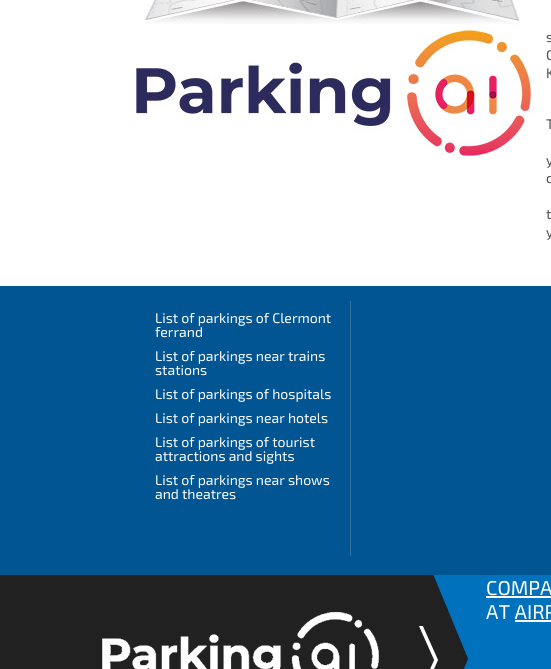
#include <cairo.h>
#include <math.h>
#include <stddef.h>

typedef struct { const char *family; double size; int italic, bold; unsigned color; } style_t;
static cairo_t *ctx;

static void ink(unsigned color) {
    cairo_set_source_rgb(ctx, (color >> 16) / 255.0, (color >> 8 & 255) / 255.0, (color & 255) / 255.0);
}

static void write(double x, double y, const char *s, const style_t *st) {
    cairo_select_font_face(ctx, st->family, st->italic ? CAIRO_FONT_SLANT_ITALIC : CAIRO_FONT_SLANT_NORMAL,
        st->bold ? CAIRO_FONT_WEIGHT_BOLD : CAIRO_FONT_WEIGHT_NORMAL);
    cairo_set_font_size(ctx, st->size);
    ink(st->color);
    cairo_move_to(ctx, x, y);
    cairo_show_text(ctx, s);
}

static void write_spaced(double x, double y, const char *s, double letter, double word) {
    cairo_move_to(ctx, x, y);
    while (*s) {
        char ch[5] = {0};
        int n = 0;
        do ch[n++] = *s++; while ((*s & 0xC0) == 0x80);
        cairo_show_text(ctx, ch);
        cairo_rel_move_to(ctx, letter + word * (*ch == ' '), 0);
    }
}

static void block(double x, double y, double w, double h, unsigned color) {
    ink(color);
    cairo_rectangle(ctx, x, y, w, h);
    cairo_fill(ctx);
}

static void paste(const char *path, double x, double y, double w, double h) {
    cairo_surface_t *image = cairo_image_surface_create_from_png(path);
    cairo_save(ctx);
    cairo_set_source_surface(ctx, image, x, y);
    cairo_rectangle(ctx, x, y, w, h);
    cairo_fill(ctx);
    cairo_restore(ctx);
    cairo_surface_destroy(image);
}

static const style_t s1 = {"Exo 2", 14, 0, 0, 0x4d4d4d};
static const style_t s2 = {"Exo 2", 14, 0, 0, 0xffffff};
static const style_t s3 = {"Exo 2", 20, 0, 0, 0xffffff};

int main(void) {
    cairo_surface_t *surface = cairo_image_surface_create(CAIRO_FORMAT_RGB24, 551, 669);
    ctx = cairo_create(surface);
    cairo_font_options_t *options = cairo_font_options_create();
    cairo_font_options_set_hint_metrics(options, CAIRO_HINT_METRICS_OFF);
    cairo_font_options_set_hint_style(options, CAIRO_HINT_STYLE_NONE);
    cairo_set_font_options(ctx, options);
    cairo_set_miter_limit(ctx, 4);
    ink(0xffffff);
    cairo_paint(ctx);
    paste("pic1.png", 136, 0, 400, 156);
    write(546, 42, "s", &s1);
    write_spaced(546, 60, "C", 0, 1);
    write_spaced(546, 78, "K", 0, 3);
    write_spaced(546, 129, "T", 0, 2);
    write_spaced(546, 165, "y", 0, 6);
    write_spaced(546, 183, "c", 0, 5);
    write_spaced(546, 219, "t", 0, 2);
    write(546, 237, "y", &s1);
    block(0, 286, 551, 289, 0x005592);
    block(350, 301, 1, 255, 0x2f719f);
    write(155, 323, "List of parkings of Clermont", &s2);
    write(155, 337, "ferrand", &s2);
    write(155, 361, "List of parkings near trains", &s2);
    write(155, 375, "stations", &s2);
    write(155, 399, "List of parkings of hospitals", &s2);
    write(155, 423, "List of parkings near hotels", &s2);
    write(155, 447, "List of parkings of tourist", &s2);
    write(155, 461, "attractions and sights", &s2);
    write(155, 485, "List of parkings near shows", &s2);
    write(155, 499, "and theatres", &s2);
    block(468, 575, 83, 94, 0x0071bc);
    paste("pic2.png", 0, 575, 468, 94);
    write(486, 595, "COMPA", &s3);
    block(486, 596, 65, 2, 0xffffff);
    write(486, 619, "AT AIRP", &s3);
    block(515, 620, 36, 2, 0xffffff);
    cairo_surface_write_to_png(surface, "screenshot.png");
    cairo_font_options_destroy(options);
    cairo_destroy(ctx);
    cairo_surface_destroy(surface);
    return 0;
}
